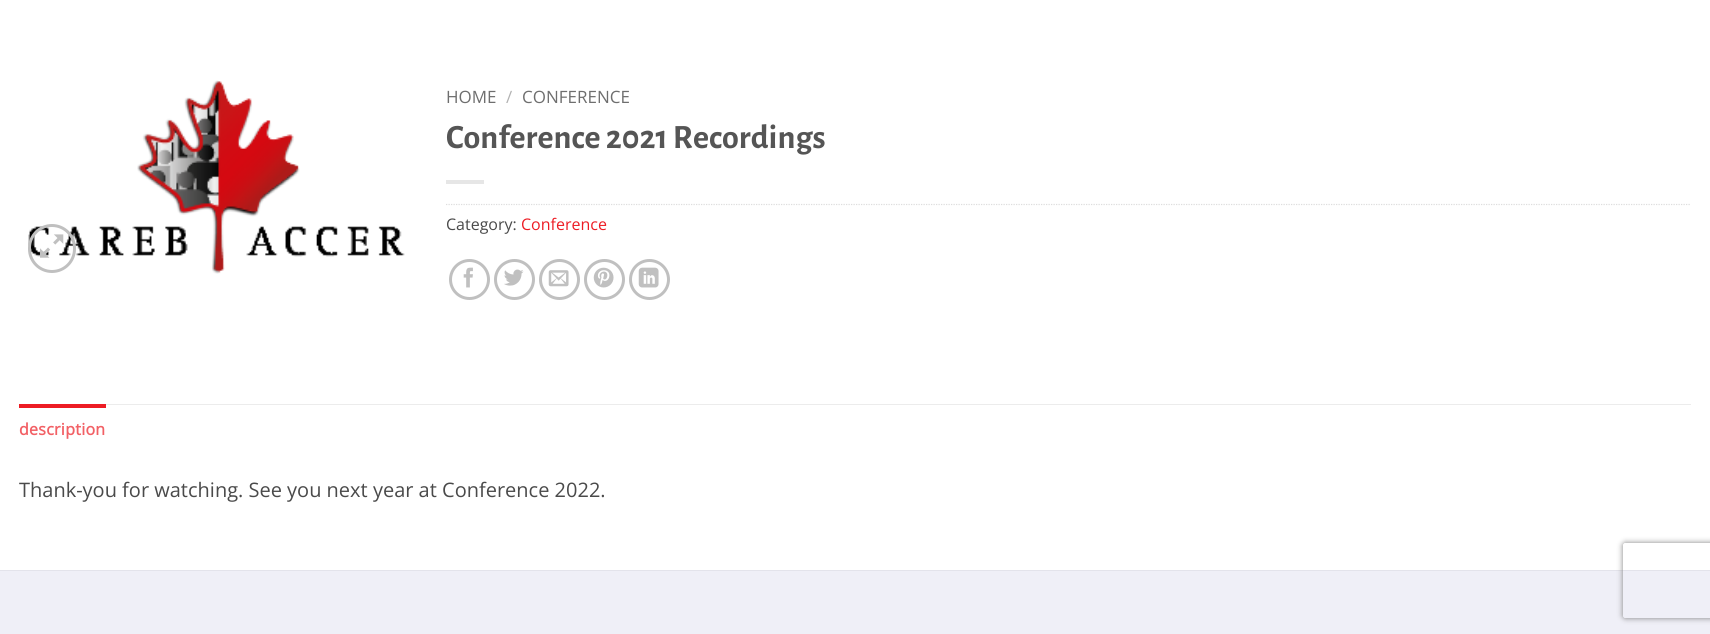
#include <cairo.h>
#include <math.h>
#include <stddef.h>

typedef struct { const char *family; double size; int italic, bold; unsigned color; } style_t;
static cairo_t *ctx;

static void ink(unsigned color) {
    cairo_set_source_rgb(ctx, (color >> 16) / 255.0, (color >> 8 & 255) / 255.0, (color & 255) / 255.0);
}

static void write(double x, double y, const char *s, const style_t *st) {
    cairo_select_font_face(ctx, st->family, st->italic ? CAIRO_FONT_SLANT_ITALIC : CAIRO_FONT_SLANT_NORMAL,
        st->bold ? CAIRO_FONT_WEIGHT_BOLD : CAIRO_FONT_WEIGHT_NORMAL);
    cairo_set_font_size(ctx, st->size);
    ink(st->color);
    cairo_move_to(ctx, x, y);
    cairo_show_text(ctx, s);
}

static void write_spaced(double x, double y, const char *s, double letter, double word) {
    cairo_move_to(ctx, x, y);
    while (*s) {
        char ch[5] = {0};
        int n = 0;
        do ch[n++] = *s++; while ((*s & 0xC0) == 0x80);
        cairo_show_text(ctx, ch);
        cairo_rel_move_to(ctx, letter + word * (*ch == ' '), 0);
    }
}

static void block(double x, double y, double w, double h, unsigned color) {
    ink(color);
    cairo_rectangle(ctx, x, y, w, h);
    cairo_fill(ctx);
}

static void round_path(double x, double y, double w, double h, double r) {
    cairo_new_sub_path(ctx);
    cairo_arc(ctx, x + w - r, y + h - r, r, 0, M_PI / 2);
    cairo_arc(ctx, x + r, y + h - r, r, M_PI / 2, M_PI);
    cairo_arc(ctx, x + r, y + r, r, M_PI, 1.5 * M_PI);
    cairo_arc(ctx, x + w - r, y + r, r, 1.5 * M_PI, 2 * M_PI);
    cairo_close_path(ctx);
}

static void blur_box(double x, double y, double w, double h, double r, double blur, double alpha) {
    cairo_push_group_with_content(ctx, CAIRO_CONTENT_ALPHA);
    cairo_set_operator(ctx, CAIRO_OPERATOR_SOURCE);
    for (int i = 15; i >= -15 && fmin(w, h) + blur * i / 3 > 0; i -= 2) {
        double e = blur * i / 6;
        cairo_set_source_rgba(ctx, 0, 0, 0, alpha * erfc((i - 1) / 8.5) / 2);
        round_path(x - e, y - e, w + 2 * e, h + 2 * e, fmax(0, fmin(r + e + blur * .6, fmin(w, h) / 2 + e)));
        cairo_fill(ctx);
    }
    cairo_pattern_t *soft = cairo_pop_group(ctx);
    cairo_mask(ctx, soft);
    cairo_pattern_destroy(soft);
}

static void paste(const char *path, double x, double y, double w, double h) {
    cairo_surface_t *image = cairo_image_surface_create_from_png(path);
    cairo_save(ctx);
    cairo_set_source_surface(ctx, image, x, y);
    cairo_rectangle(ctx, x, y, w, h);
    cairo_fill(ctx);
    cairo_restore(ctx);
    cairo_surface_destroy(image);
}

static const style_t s1 = {"Open Sans", 17, 0, 0, 0x6e6e6e};
static const style_t s2 = {"Open Sans", 17, 0, 0, 0xb2b2b2};
static const style_t s3 = {"Alegreya Sans", 34, 0, 1, 0x555555};
static const style_t s4 = {"Open Sans", 16, 0, 0, 0x4a4a4a};
static const style_t s5 = {"Open Sans", 16, 0, 0, 0xed1c24};
static const style_t s6 = {"Open Sans", 20, 0, 0, 0x4a4a4a};

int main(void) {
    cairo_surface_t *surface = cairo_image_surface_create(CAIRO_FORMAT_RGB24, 1710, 634);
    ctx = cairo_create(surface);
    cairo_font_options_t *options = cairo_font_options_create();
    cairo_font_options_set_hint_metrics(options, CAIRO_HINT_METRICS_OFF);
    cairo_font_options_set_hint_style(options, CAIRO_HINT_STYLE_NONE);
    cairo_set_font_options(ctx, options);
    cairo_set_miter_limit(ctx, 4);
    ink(0xffffff);
    cairo_paint(ctx);
    paste("pic1.png", 28, 80, 377, 194);
    round_path(29.5, 225.5, 45, 46, 22.5);
    ink(0xc0c0c0);
    cairo_set_line_width(ctx, 3);
    cairo_stroke(ctx);
    paste("pic2.png", 40, 234, 24, 24);
    write(446, 103, "HOME", &s1);
    write(506, 103, "/", &s2);
    write(522, 103, "CONFERENCE", &s1);
    write(446, 148, "Conference 2021 Recordings", &s3);
    block(446, 180, 38, 4, 0xe6e6e6);
    cairo_new_path(ctx);
    cairo_move_to(ctx, 446, 204.5);
    cairo_line_to(ctx, 1691, 204.5);
    ink(0xdddddd);
    cairo_set_line_width(ctx, 1.2);
    cairo_set_dash(ctx, (double[]){1.25, 1.25}, 2, 0);
    cairo_stroke(ctx);
    write(446, 230, "Category:", &s4);
    write(521, 230, "Conference", &s5);
    cairo_new_path(ctx);
    cairo_arc(ctx, 469.5, 279.5, 19, 0, 2 * M_PI);
    ink(0xc0c0c0);
    cairo_set_line_width(ctx, 3);
    cairo_set_dash(ctx, NULL, 0, 0);
    cairo_stroke(ctx);
    paste("pic3.png", 463, 267, 10, 21);
    cairo_arc(ctx, 514.5, 279.5, 19, 0, 2 * M_PI);
    cairo_stroke(ctx);
    paste("pic4.png", 504, 269, 20, 17);
    cairo_arc(ctx, 559.5, 279.5, 19, 0, 2 * M_PI);
    cairo_stroke(ctx);
    paste("pic5.png", 548, 270, 21, 17);
    cairo_arc(ctx, 604.5, 279.5, 19, 0, 2 * M_PI);
    cairo_stroke(ctx);
    paste("pic6.png", 593, 267, 21, 21);
    cairo_arc(ctx, 649.5, 279.5, 19, 0, 2 * M_PI);
    cairo_stroke(ctx);
    paste("pic7.png", 638, 267, 21, 21);
    block(106, 404, 1585, 1, 0xececec);
    block(19, 404, 87, 4, 0xed1c24);
    cairo_select_font_face(ctx, "Open Sans", CAIRO_FONT_SLANT_NORMAL, CAIRO_FONT_WEIGHT_BOLD);
    ink(0xf26065);
    write_spaced(19, 435, "description", 0.25, 0);
    write(19, 497, "Thank-you for watching. See you next year at Conference 2022.", &s6);
    block(0, 571, 1710, 63, 0xefeff7);
    block(0, 570, 1710, 1, 0xe3e3eb);
    cairo_save(ctx);
    cairo_set_fill_rule(ctx, CAIRO_FILL_RULE_EVEN_ODD);
    cairo_new_path(ctx);
    cairo_move_to(ctx, 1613, 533);
    cairo_line_to(ctx, 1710, 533);
    cairo_line_to(ctx, 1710, 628);
    cairo_line_to(ctx, 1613, 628);
    cairo_close_path(ctx);
    cairo_move_to(ctx, 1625.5, 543);
    cairo_line_to(ctx, 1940.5, 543);
    cairo_curve_to(ctx, 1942, 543, 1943, 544, 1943, 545.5);
    cairo_line_to(ctx, 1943, 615.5);
    cairo_curve_to(ctx, 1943, 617, 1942, 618, 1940.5, 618);
    cairo_line_to(ctx, 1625.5, 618);
    cairo_curve_to(ctx, 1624, 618, 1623, 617, 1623, 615.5);
    cairo_line_to(ctx, 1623, 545.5);
    cairo_curve_to(ctx, 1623, 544, 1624, 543, 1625.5, 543);
    cairo_close_path(ctx);
    cairo_clip(ctx);
    ink(0x808080);
    blur_box(1623, 543, 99, 75, 2.5, 3, 1);
    cairo_restore(ctx);
    cairo_surface_write_to_png(surface, "screenshot.png");
    cairo_font_options_destroy(options);
    cairo_destroy(ctx);
    cairo_surface_destroy(surface);
    return 0;
}
